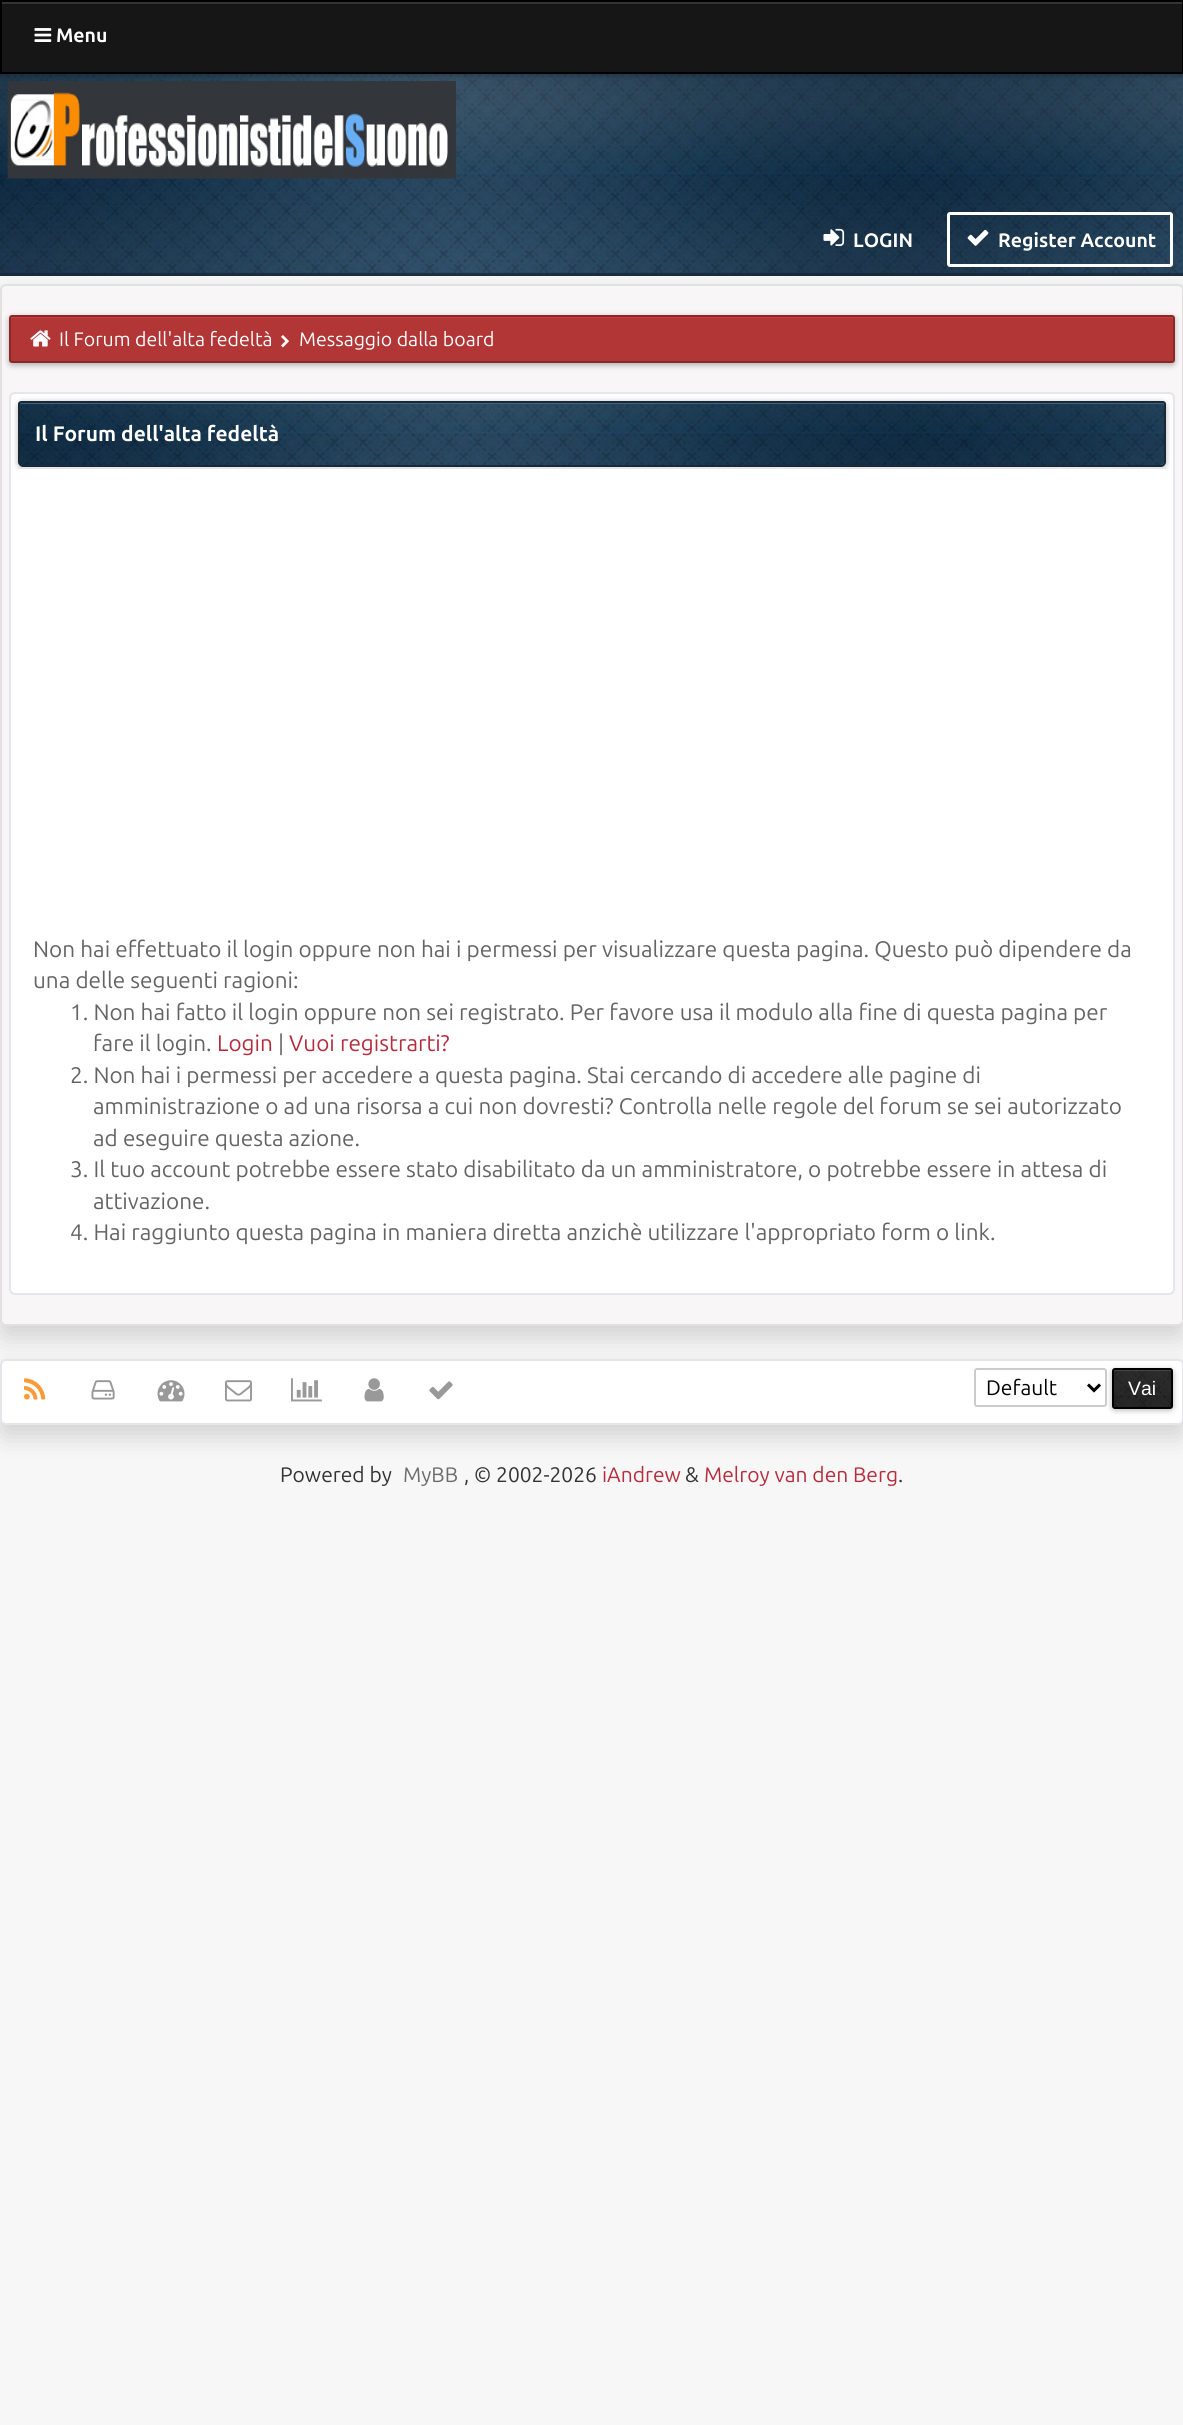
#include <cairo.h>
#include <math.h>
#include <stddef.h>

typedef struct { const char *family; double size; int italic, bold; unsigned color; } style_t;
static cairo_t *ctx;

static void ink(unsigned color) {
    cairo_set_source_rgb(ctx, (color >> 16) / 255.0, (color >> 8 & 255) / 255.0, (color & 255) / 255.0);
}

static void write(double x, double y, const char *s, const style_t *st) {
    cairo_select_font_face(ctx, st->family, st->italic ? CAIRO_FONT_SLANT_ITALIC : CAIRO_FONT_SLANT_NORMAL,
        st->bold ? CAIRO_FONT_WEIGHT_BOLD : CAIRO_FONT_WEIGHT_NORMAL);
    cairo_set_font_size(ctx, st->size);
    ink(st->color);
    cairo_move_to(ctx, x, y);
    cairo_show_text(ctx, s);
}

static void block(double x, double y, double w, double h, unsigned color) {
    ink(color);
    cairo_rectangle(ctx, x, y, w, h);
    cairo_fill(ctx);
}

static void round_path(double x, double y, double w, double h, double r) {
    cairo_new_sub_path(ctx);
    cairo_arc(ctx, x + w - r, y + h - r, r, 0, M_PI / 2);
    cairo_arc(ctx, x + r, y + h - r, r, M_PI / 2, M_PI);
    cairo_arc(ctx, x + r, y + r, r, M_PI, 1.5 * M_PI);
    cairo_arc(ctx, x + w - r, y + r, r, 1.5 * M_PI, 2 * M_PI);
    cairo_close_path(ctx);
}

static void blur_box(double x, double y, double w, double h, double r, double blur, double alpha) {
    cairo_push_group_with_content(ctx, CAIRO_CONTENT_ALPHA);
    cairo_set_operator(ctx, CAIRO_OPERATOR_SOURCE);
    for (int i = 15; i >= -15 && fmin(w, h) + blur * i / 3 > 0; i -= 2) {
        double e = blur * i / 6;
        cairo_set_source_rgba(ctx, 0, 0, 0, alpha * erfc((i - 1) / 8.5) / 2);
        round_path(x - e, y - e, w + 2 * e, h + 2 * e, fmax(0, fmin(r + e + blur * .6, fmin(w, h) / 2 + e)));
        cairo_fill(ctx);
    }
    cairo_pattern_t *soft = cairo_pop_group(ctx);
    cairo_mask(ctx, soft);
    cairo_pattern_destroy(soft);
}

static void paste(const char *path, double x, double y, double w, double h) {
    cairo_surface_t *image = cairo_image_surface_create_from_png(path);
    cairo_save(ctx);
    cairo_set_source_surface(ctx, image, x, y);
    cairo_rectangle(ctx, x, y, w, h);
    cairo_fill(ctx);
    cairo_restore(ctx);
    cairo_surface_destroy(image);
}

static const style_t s1 = {"Ubuntu", 19.5, 0, 1, 0xffffff};
static const style_t s2 = {"Ubuntu", 19.5, 0, 0, 0xffffff};
static const style_t s3 = {"Ubuntu", 21, 0, 1, 0xffffff};
static const style_t s4 = {"Ubuntu", 22.5, 0, 0, 0x646464};
static const style_t s5 = {"Ubuntu", 22.5, 0, 0, 0xb52d3d};
static const style_t s6 = {"Ubuntu", 21, 0, 0, 0x000000};
static const style_t s7 = {"Liberation Sans", 19.5, 0, 0, 0xffffff};
static const style_t s8 = {"Ubuntu", 21, 0, 0, 0x333333};
static const style_t s9 = {"Ubuntu", 21, 0, 0, 0x6c6c6c};
static const style_t s10 = {"Ubuntu", 21, 0, 0, 0xb52d3d};

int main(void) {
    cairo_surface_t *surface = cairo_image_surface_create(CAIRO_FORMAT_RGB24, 1183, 2425);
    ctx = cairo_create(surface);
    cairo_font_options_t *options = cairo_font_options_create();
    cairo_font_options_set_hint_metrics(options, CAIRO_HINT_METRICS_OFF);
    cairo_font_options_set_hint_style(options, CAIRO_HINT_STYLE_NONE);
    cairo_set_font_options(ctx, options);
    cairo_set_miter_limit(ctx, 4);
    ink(0xf7f7f7);
    cairo_paint(ctx);
    paste("pic1.png", 0, 74, 1183, 202);
    paste("pic3.png", 7, 81, 449, 98);
    ink(0x000000);
    blur_box(0, 2, 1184, 73, 0, 3, 0.3);
    block(2, 4, 1180, 68, 0x161617);
    block(2, 2, 1180, 2, 0x343435);
    cairo_rectangle(ctx, 1, 1, 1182, 72);
    ink(0x000000);
    cairo_stroke(ctx);
    paste("pic2.png", 34, 28, 18, 14);
    write(56, 42, "Menu", &s1);
    paste("pic4.png", 823, 228, 22, 18);
    write(853, 247, "LOGIN", &s1);
    round_path(948.5, 213.5, 223, 52, 1.5);
    cairo_set_line_width(ctx, 3);
    cairo_stroke(ctx);
    paste("pic5.png", 967, 229, 22, 17);
    write(998, 247, "Register Account", &s1);
    ink(0x000000);
    blur_box(0, 1371, 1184, 66, 6, 12, 0.15);
    ink(0xffffff);
    round_path(1, 1360, 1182, 64, 5);
    cairo_fill_preserve(ctx);
    ink(0xe4e6e9);
    cairo_set_line_width(ctx, 2);
    cairo_stroke(ctx);
    round_path(975, 1369, 131, 37, 2);
    ink(0xcccccc);
    cairo_stroke(ctx);
    ink(0x000000);
    blur_box(0, 296, 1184, 1042, 6, 12, 0.15);
    ink(0xf8f6f6);
    round_path(1, 285, 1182, 1040, 5);
    cairo_fill_preserve(ctx);
    ink(0xe1e1e1);
    cairo_stroke(ctx);
    ink(0x000000);
    blur_box(9, 317, 1166, 48, 3, 3, 0.3);
    ink(0xb23636);
    round_path(11, 317, 1162, 45, 1.5);
    cairo_fill(ctx);
    ink(0xcc3d3d);
    cairo_new_path(ctx);
    cairo_move_to(ctx, 12, 318);
    cairo_line_to(ctx, 1172, 318);
    cairo_line_to(ctx, 1173, 319);
    cairo_curve_to(ctx, 1173, 318, 1173, 317, 1172, 317);
    cairo_line_to(ctx, 12, 317);
    cairo_curve_to(ctx, 11, 317, 11, 318, 11, 319);
    cairo_close_path(ctx);
    cairo_fill(ctx);
    round_path(10, 316, 1164, 46, 2);
    ink(0x882929);
    cairo_stroke(ctx);
    paste("pic6.png", 30, 330, 21, 17);
    write(59, 346, "Il Forum dell'alta fedeltà", &s2);
    paste("pic7.png", 281, 335, 8, 13);
    write(299, 346, "Messaggio dalla board", &s2);
    round_path(10, 393, 1164, 901, 5);
    cairo_fill_preserve(ctx);
    ink(0xe4e6e9);
    cairo_stroke(ctx);
    ink(0x000000);
    blur_box(18, 402, 1148, 66, 5, 3, 0.3);
    paste("pic8.png", 20, 403, 1144, 62);
    ink(0x3d6485);
    cairo_new_path(ctx);
    cairo_move_to(ctx, 21, 404);
    cairo_line_to(ctx, 1162, 404);
    cairo_curve_to(ctx, 1163, 404, 1164, 404, 1164, 405);
    cairo_line_to(ctx, 1164, 403);
    cairo_line_to(ctx, 1162, 402);
    cairo_line_to(ctx, 22, 402);
    cairo_curve_to(ctx, 20, 402, 20, 404, 20, 405);
    cairo_curve_to(ctx, 20, 404, 20, 404, 21, 404);
    cairo_close_path(ctx);
    cairo_fill(ctx);
    cairo_new_path(ctx);
    cairo_move_to(ctx, 21, 402);
    cairo_line_to(ctx, 1163, 402);
    cairo_curve_to(ctx, 1164, 402, 1165, 403, 1165, 404);
    cairo_line_to(ctx, 1165, 462);
    cairo_curve_to(ctx, 1165, 464, 1163, 466, 1161, 466);
    cairo_line_to(ctx, 23, 466);
    cairo_curve_to(ctx, 21, 466, 19, 464, 19, 462);
    cairo_line_to(ctx, 19, 404);
    cairo_curve_to(ctx, 19, 403, 20, 402, 21, 402);
    cairo_close_path(ctx);
    ink(0x1a2936);
    cairo_stroke(ctx);
    write(35, 441, "Il Forum dell'alta fedeltà", &s3);
    cairo_new_path(ctx);
    cairo_move_to(ctx, 18, 467);
    cairo_line_to(ctx, 1166, 467);
    cairo_line_to(ctx, 1166, 1283);
    cairo_curve_to(ctx, 1166, 1284.5, 1164.5, 1286, 1163, 1286);
    cairo_line_to(ctx, 21, 1286);
    cairo_curve_to(ctx, 19.5, 1286, 18, 1284.5, 18, 1283);
    cairo_close_path(ctx);
    cairo_fill(ctx);
    block(18, 467, 1148, 2, 0xe7e6e6);
    write(33, 957, "Non hai effettuato il login oppure non hai i permessi per visualizzare questa pagina. Questo può dipendere da", &s4);
    write(33, 988, "una delle seguenti ragioni:", &s4);
    write(70, 1020, "1. Non hai fatto il login oppure non sei registrato. Per favore usa il modulo alla fine di questa pagina per", &s4);
    write(93, 1051, "fare il login.", &s4);
    write(217, 1051, "Login", &s5);
    write(278, 1051, "|", &s4);
    write(289, 1051, "Vuoi registrarti?", &s5);
    write(70, 1083, "2. Non hai i permessi per accedere a questa pagina. Stai cercando di accedere alle pagine di", &s4);
    write(93, 1114, "amministrazione o ad una risorsa a cui non dovresti? Controlla nelle regole del forum se sei autorizzato", &s4);
    write(93, 1146, "ad eseguire questa azione.", &s4);
    write(70, 1177, "3. Il tuo account potrebbe essere stato disabilitato da un amministratore, o potrebbe essere in attesa di", &s4);
    write(93, 1209, "attivazione.", &s4);
    write(70, 1240, "4. Hai raggiunto questa pagina in maniera diretta anzichè utilizzare l'appropriato form o link.", &s4);
    paste("pic9.png", 24, 1378, 22, 22);
    paste("pic10.png", 91, 1380, 24, 20);
    paste("pic11.png", 157, 1380, 28, 22);
    paste("pic12.png", 225, 1380, 27, 22);
    paste("pic13.png", 291, 1378, 31, 24);
    paste("pic14.png", 364, 1378, 20, 24);
    paste("pic15.png", 429, 1381, 24, 19);
    cairo_new_path(ctx);
    cairo_move_to(ctx, 1088, 1384.5);
    cairo_line_to(ctx, 1094, 1390.5);
    cairo_line_to(ctx, 1100, 1384.5);
    ink(0x000000);
    cairo_set_line_width(ctx, 3);
    cairo_stroke(ctx);
    write(986, 1395, "Default", &s6);
    ink(0x000000);
    blur_box(1112, 1370, 61, 40, 3, 3, 0.3);
    paste("pic16.png", 1114, 1370, 57, 37);
    cairo_set_source_rgba(ctx, 1, 1, 1, 0.13);
    cairo_new_path(ctx);
    cairo_move_to(ctx, 1114, 1371);
    cairo_line_to(ctx, 1170, 1371);
    cairo_line_to(ctx, 1172, 1372);
    cairo_curve_to(ctx, 1172, 1371, 1172, 1370, 1170, 1370);
    cairo_line_to(ctx, 1124, 1370);
    cairo_curve_to(ctx, 1123, 1370, 1113, 1367, 1113, 1372);
    cairo_close_path(ctx);
    cairo_fill(ctx);
    round_path(1113, 1369, 59, 39, 2);
    ink(0x000000);
    cairo_set_line_width(ctx, 2);
    cairo_stroke(ctx);
    write(1128, 1395, "Vai", &s7);
    write(280, 1482, "Powered by", &s8);
    write(403, 1482, "MyBB", &s9);
    write(464, 1482, ", © 2002-2026", &s8);
    write(602, 1482, "iAndrew", &s10);
    write(685, 1482, "&", &s8);
    write(704, 1482, "Melroy van den Berg", &s10);
    write(898, 1482, ".", &s8);
    cairo_surface_write_to_png(surface, "screenshot.png");
    cairo_font_options_destroy(options);
    cairo_destroy(ctx);
    cairo_surface_destroy(surface);
    return 0;
}
